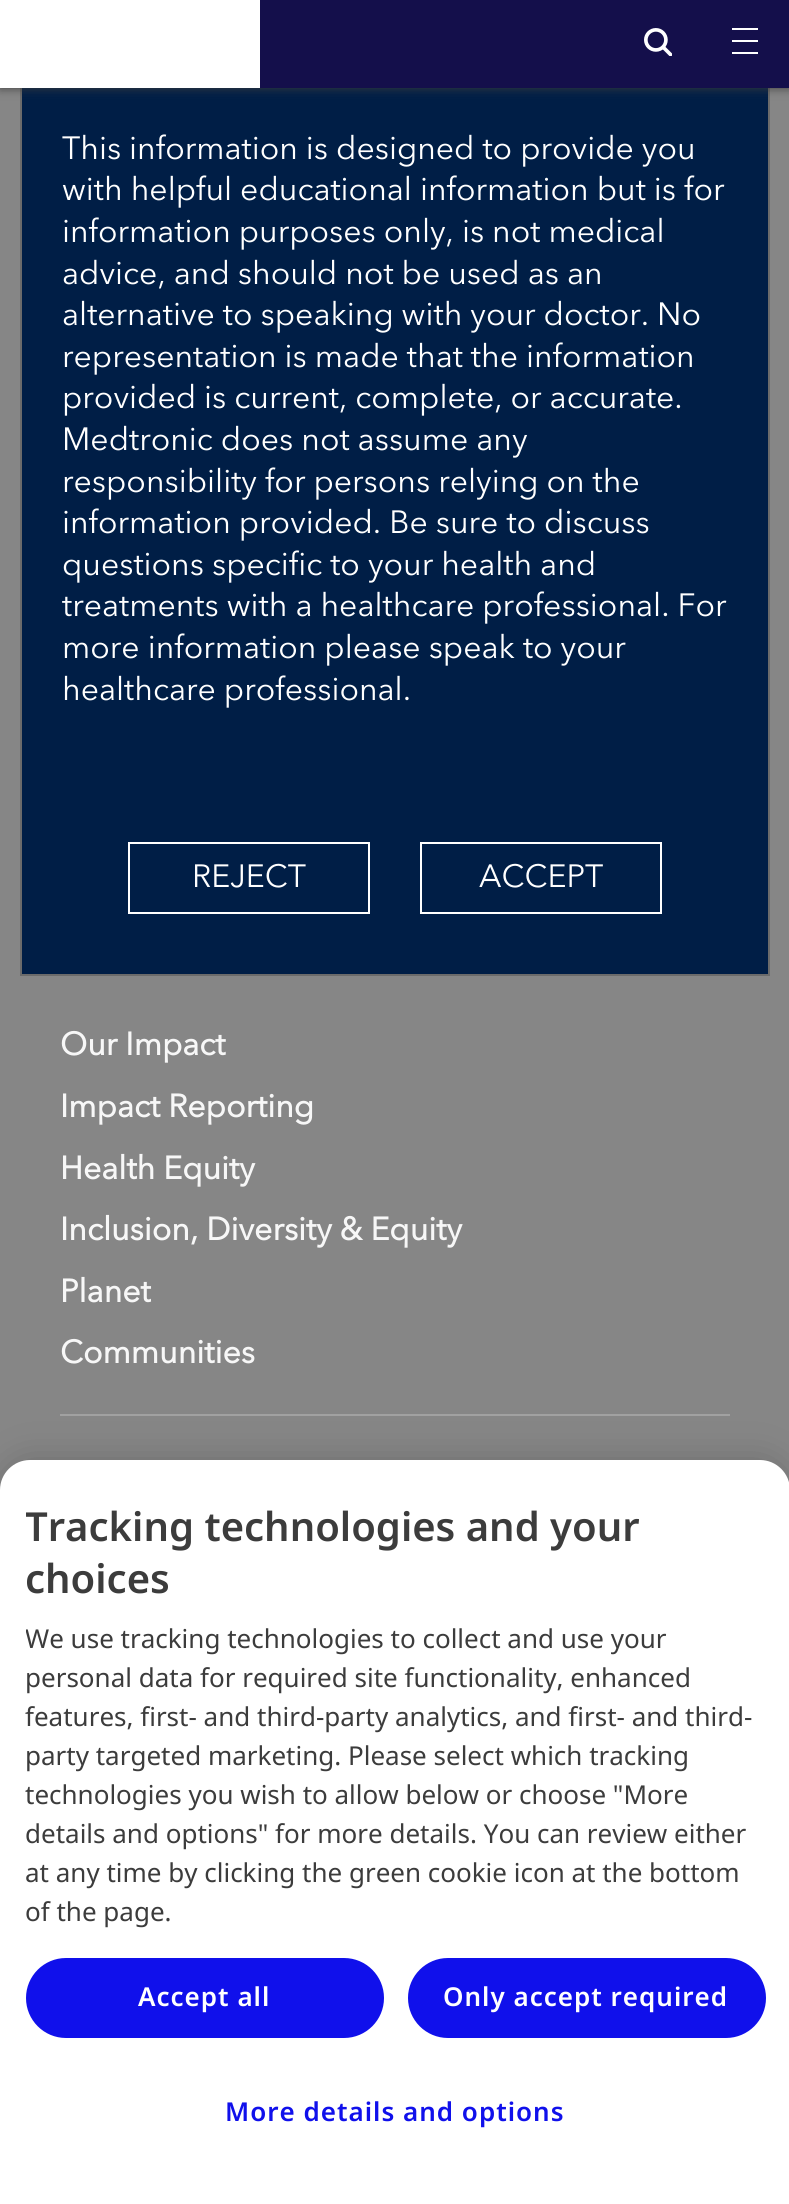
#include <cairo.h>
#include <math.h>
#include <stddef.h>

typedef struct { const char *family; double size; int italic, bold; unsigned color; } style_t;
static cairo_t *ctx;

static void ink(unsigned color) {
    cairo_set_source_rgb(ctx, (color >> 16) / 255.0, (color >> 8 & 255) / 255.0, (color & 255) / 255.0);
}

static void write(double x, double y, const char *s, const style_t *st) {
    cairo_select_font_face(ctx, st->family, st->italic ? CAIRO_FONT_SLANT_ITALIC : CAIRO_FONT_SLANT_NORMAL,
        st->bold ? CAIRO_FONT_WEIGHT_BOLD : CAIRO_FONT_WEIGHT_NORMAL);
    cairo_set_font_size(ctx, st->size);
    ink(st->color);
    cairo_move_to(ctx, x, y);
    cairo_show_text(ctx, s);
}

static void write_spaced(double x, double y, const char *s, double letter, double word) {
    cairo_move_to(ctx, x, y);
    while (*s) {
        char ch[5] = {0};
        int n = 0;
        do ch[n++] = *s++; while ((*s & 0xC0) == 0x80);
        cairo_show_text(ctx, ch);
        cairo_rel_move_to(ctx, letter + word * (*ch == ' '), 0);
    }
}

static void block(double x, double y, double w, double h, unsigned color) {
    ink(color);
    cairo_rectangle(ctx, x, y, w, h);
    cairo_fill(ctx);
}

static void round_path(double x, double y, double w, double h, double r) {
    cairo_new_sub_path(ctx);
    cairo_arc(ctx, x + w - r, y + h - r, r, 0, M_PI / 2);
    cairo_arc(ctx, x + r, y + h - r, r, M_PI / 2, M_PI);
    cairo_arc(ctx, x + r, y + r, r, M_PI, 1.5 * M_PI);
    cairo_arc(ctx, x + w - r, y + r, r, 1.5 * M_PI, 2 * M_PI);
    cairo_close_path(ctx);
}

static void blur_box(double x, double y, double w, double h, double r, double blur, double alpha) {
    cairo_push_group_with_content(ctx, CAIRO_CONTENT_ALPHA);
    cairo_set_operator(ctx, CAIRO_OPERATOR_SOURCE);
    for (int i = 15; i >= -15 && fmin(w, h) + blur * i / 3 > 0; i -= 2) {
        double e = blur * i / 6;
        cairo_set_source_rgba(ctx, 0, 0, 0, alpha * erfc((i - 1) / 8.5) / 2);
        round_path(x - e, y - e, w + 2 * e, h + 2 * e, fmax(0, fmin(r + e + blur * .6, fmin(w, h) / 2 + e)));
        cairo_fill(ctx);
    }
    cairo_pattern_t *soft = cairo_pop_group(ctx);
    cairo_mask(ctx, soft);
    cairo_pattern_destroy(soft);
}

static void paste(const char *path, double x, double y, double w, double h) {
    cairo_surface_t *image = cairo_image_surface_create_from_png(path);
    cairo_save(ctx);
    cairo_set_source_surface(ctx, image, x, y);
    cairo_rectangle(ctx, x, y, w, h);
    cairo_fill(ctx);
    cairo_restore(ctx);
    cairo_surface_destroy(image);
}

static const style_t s1 = {"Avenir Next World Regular", 32, 0, 0, 0xffffff};
static const style_t s2 = {"Avenir Next World Regular", 32, 0, 1, 0xf7f7f7};
static const style_t s3 = {"Noto Sans SemiBold", 40, 0, 0, 0x3c3c3c};
static const style_t s4 = {"Noto Sans", 26, 0, 0, 0x3c3c3c};

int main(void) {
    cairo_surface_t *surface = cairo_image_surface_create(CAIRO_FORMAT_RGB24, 789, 2204);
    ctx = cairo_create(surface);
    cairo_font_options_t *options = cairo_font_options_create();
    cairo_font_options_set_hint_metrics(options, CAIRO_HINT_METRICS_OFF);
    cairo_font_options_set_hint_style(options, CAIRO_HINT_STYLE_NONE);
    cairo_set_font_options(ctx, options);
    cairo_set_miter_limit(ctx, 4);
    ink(0x868686);
    cairo_paint(ctx);
    block(22, 88, 746, 886, 0x001e46);
    cairo_rectangle(ctx, 21, 21, 748, 954);
    ink(0x6b6b6b);
    cairo_stroke(ctx);
    ink(0x3c3c3c);
    blur_box(0, 0, 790, 88, 0, 5, 1);
    block(260, 0, 529, 88, 0x140f4b);
    block(0, 0, 260, 88, 0xffffff);
    paste("pic1.png", 644, 28, 28, 28);
    block(732, 28, 26, 2, 0xffffff);
    block(732, 40, 26, 2, 0xffffff);
    block(732, 52, 26, 2, 0xffffff);
    write(62, 159, "This information is designed to provide you", &s1);
    write(62, 200, "with helpful educational information but is for", &s1);
    write(62, 242, "information purposes only, is not medical", &s1);
    write(62, 284, "advice, and should not be used as an", &s1);
    write(62, 325, "alternative to speaking with your doctor. No", &s1);
    write(62, 367, "representation is made that the information", &s1);
    write(62, 408, "provided is current, complete, or accurate.", &s1);
    write(62, 450, "Medtronic does not assume any", &s1);
    write(62, 492, "responsibility for persons relying on the", &s1);
    write(62, 533, "information provided. Be sure to discuss", &s1);
    write(62, 575, "questions specific to your health and", &s1);
    write(62, 616, "treatments with a healthcare professional. For", &s1);
    write(62, 658, "more information please speak to your", &s1);
    write(62, 700, "healthcare professional.", &s1);
    cairo_rectangle(ctx, 129, 843, 240, 70);
    cairo_stroke(ctx);
    write(192, 887, "REJECT", &s1);
    cairo_rectangle(ctx, 421, 843, 240, 70);
    cairo_stroke(ctx);
    write(479, 887, "ACCEPT", &s1);
    block(60, 1414, 670, 2, 0xa1a1a1);
    write(60, 1055, "Our Impact", &s2);
    write(60, 1117, "Impact Reporting", &s2);
    write(60, 1179, "Health Equity", &s2);
    write(60, 1240, "Inclusion, Diversity & Equity", &s2);
    write(60, 1302, "Planet", &s2);
    write(60, 1363, "Communities", &s2);
    ink(0x000000);
    blur_box(0, 1460, 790, 744, 30, 18, 0.2);
    ink(0xffffff);
    cairo_new_path(ctx);
    cairo_move_to(ctx, 30, 1460);
    cairo_line_to(ctx, 760, 1460);
    cairo_curve_to(ctx, 776.5, 1460, 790, 1473.5, 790, 1490);
    cairo_line_to(ctx, 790, 2204);
    cairo_line_to(ctx, 0, 2204);
    cairo_line_to(ctx, 0, 1490);
    cairo_curve_to(ctx, 0, 1473.5, 13.5, 1460, 30, 1460);
    cairo_close_path(ctx);
    cairo_fill(ctx);
    cairo_save(ctx);
    cairo_rectangle(ctx, 26, 1500, 740, 458);
    cairo_clip(ctx);
    write(25, 1541, "Tracking technologies and your", &s3);
    cairo_restore(ctx);
    write(25, 1593, "choices", &s3);
    cairo_save(ctx);
    cairo_rectangle(ctx, 26, 1500, 740, 458);
    cairo_clip(ctx);
    write(25, 1648, "We use tracking technologies to collect and use your", &s4);
    cairo_restore(ctx);
    write(25, 1687, "personal data for required site functionality, enhanced", &s4);
    write(25, 1726, "features, first- and third-party analytics, and first- and third-", &s4);
    write(25, 1765, "party targeted marketing. Please select which tracking", &s4);
    write(25, 1804, "technologies you wish to allow below or choose \"More", &s4);
    write(25, 1843, "details and options\" for more details. You can review either", &s4);
    write(25, 1882, "at any time by clicking the green cookie icon at the bottom", &s4);
    write(25, 1921, "of the page.", &s4);
    ink(0x1010eb);
    round_path(27, 1959, 356, 78, 39);
    cairo_fill_preserve(ctx);
    cairo_stroke(ctx);
    cairo_select_font_face(ctx, "Noto Sans SemiBold", CAIRO_FONT_SLANT_NORMAL, CAIRO_FONT_WEIGHT_NORMAL);
    ink(0xffffff);
    write_spaced(138, 2006, "Accept all", 1, 0);
    ink(0x1010eb);
    round_path(409, 1959, 356, 78, 39);
    cairo_fill_preserve(ctx);
    cairo_stroke(ctx);
    ink(0xffffff);
    write_spaced(443, 2006, "Only accept required", 1, 0);
    ink(0x1010eb);
    write_spaced(225, 2121, "More details and options", 1, 0);
    cairo_surface_write_to_png(surface, "screenshot.png");
    cairo_font_options_destroy(options);
    cairo_destroy(ctx);
    cairo_surface_destroy(surface);
    return 0;
}
